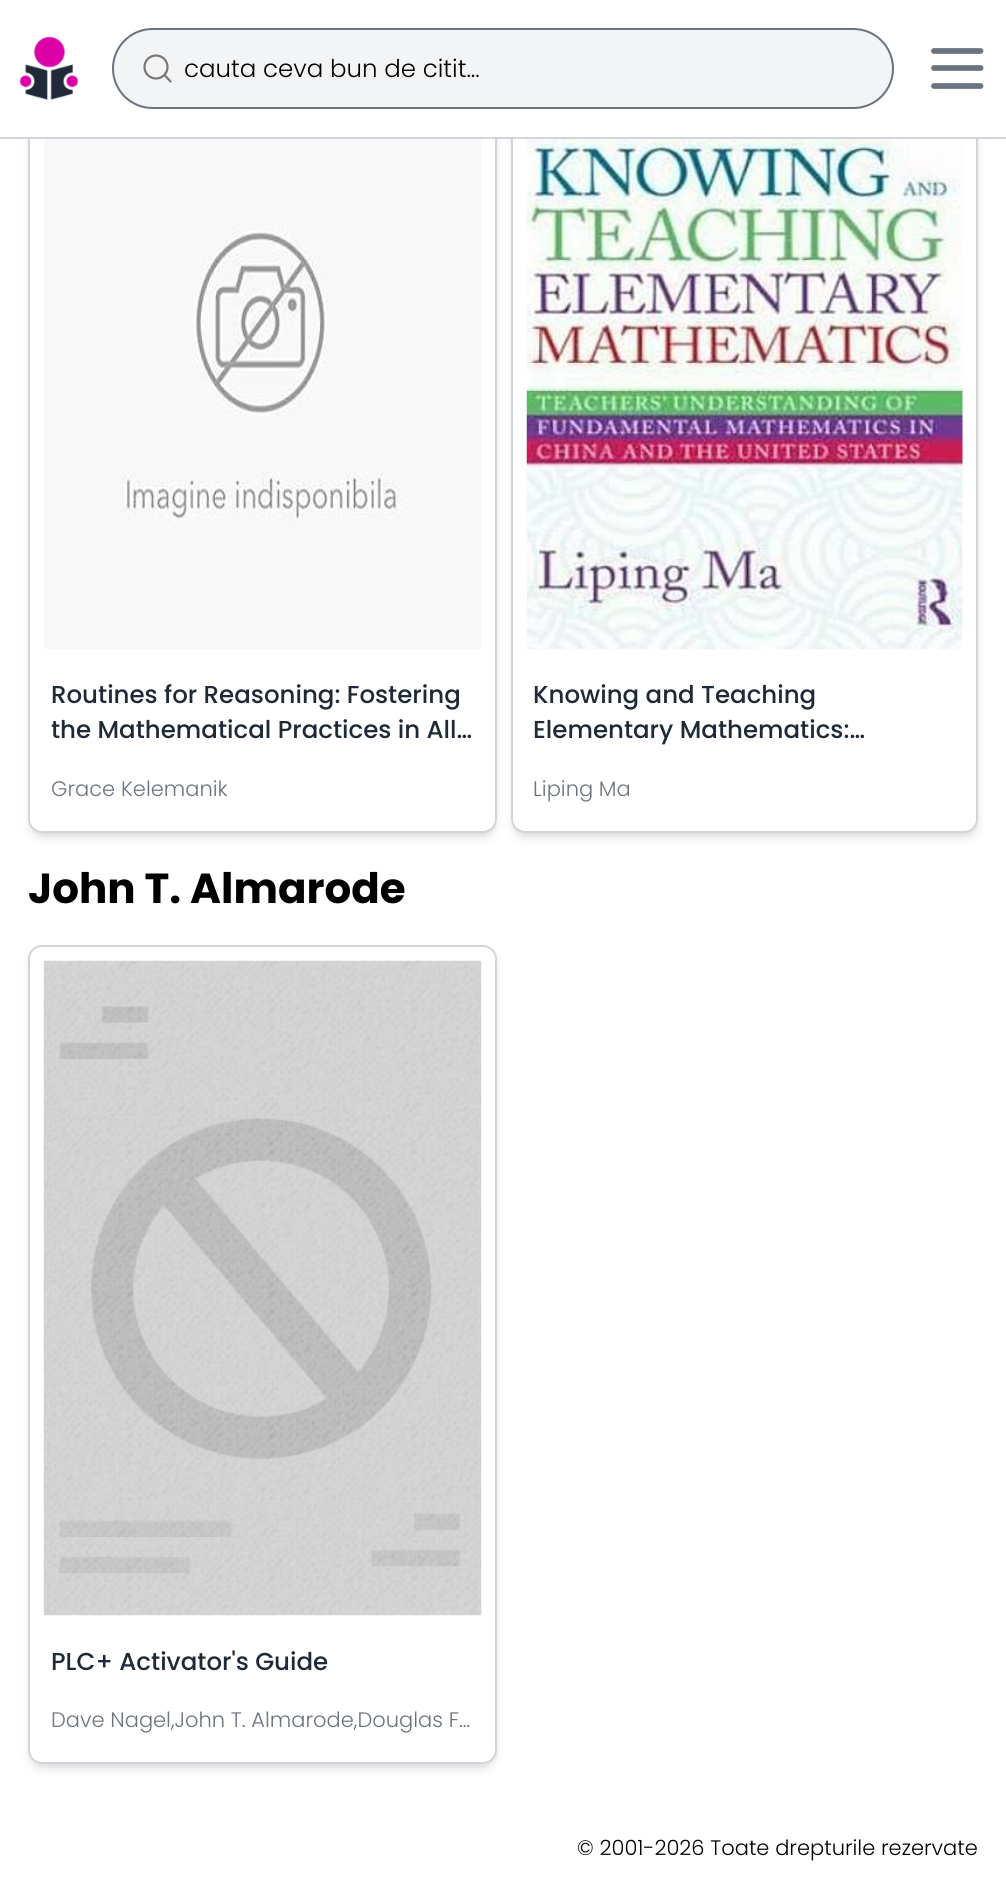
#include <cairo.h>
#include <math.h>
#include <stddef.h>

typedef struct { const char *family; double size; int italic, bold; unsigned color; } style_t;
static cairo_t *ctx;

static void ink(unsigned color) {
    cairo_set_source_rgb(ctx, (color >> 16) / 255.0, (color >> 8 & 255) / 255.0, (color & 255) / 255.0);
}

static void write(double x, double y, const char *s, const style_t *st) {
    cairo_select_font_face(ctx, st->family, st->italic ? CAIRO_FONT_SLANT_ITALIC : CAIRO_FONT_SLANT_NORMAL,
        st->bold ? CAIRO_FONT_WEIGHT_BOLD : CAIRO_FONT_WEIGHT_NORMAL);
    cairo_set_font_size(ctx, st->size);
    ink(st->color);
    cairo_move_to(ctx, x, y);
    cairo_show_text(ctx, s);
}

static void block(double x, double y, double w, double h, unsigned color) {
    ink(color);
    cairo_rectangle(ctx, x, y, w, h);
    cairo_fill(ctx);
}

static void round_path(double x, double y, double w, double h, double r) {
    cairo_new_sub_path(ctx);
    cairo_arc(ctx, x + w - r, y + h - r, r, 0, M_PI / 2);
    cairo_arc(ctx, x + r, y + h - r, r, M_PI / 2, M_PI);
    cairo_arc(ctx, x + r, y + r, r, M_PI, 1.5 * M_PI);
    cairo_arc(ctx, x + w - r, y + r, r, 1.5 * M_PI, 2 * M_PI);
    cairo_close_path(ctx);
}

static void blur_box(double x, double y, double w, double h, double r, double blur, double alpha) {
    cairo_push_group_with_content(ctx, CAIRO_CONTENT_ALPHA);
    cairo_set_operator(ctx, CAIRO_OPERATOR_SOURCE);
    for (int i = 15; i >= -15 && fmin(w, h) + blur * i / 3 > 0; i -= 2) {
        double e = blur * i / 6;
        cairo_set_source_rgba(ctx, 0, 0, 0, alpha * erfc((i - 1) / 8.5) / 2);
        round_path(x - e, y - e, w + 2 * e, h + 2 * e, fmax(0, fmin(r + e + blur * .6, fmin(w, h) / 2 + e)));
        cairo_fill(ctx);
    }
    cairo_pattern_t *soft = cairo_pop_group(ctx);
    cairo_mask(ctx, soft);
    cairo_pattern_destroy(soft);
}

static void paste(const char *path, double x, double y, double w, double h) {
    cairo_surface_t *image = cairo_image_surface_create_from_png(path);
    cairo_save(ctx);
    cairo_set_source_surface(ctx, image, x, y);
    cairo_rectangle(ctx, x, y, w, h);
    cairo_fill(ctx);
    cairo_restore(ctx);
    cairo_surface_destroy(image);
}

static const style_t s1 = {"Poppins Light", 24.5, 0, 0, 0x000000};
static const style_t s2 = {"Poppins Medium", 24.5, 0, 0, 0x1f2937};
static const style_t s3 = {"Poppins Light", 21, 0, 0, 0x6b7280};
static const style_t s4 = {"Poppins", 42, 0, 1, 0x000000};
static const style_t s5 = {"Poppins Light", 21, 0, 0, 0x000000};

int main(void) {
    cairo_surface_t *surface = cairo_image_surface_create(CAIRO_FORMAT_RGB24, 1006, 1903);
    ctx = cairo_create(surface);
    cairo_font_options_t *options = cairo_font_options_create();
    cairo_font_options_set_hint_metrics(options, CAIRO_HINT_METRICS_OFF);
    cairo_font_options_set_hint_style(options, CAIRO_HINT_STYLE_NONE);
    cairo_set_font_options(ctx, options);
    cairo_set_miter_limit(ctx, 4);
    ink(0xffffff);
    cairo_paint(ctx);
    ink(0x000000);
    blur_box(32, -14, 462, 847, 11, 3.5, 0.1);
    blur_box(30, -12, 465, 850, 12, 5, 0.1);
    ink(0xffffff);
    round_path(29, -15, 467, 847, 13);
    cairo_fill_preserve(ctx);
    ink(0xd1d5db);
    cairo_stroke(ctx);
    ink(0x000000);
    blur_box(515, -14, 460, 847, 11, 3.5, 0.1);
    blur_box(513, -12, 464, 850, 12, 5, 0.1);
    ink(0xffffff);
    round_path(512, -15, 465, 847, 13);
    cairo_fill_preserve(ctx);
    ink(0xd1d5db);
    cairo_stroke(ctx);
    block(23, 0, 961, 137, 0xffffff);
    block(0, 137, 1006, 2, 0xd1d5db);
    paste("pic1.png", 19, 36, 60, 65);
    ink(0xf3f4f6);
    round_path(112, 28, 782, 81, 40.5);
    cairo_fill(ctx);
    cairo_arc(ctx, 156, 67, 11.5, 0, 2 * M_PI);
    ink(0x777777);
    cairo_set_line_width(ctx, 2.2);
    cairo_stroke(ctx);
    cairo_new_path(ctx);
    cairo_move_to(ctx, 170.5, 81.5);
    cairo_line_to(ctx, 164.5, 75);
    cairo_set_line_cap(ctx, CAIRO_LINE_CAP_ROUND);
    cairo_set_line_join(ctx, CAIRO_LINE_JOIN_ROUND);
    cairo_stroke(ctx);
    round_path(113, 29, 780, 79, 39.5);
    ink(0x6b7280);
    cairo_set_line_width(ctx, 2);
    cairo_set_line_cap(ctx, CAIRO_LINE_CAP_BUTT);
    cairo_set_line_join(ctx, CAIRO_LINE_JOIN_MITER);
    cairo_stroke(ctx);
    write(184, 77, "cauta ceva bun de citit...", &s1);
    cairo_new_path(ctx);
    cairo_move_to(ctx, 934, 51);
    cairo_line_to(ctx, 980.5, 51);
    cairo_move_to(ctx, 934, 68);
    cairo_line_to(ctx, 980.5, 68);
    cairo_move_to(ctx, 934, 86);
    cairo_line_to(ctx, 980.5, 86);
    ink(0x6b7280);
    cairo_set_line_width(ctx, 5.8);
    cairo_set_line_cap(ctx, CAIRO_LINE_CAP_ROUND);
    cairo_set_line_join(ctx, CAIRO_LINE_JOIN_ROUND);
    cairo_stroke(ctx);
    paste("pic2.png", 44, 139, 437, 510);
    write(51, 703, "Routines for Reasoning: Fostering", &s2);
    write(51, 738, "the Mathematical Practices in All…", &s2);
    write(51, 796, "Grace Kelemanik", &s3);
    paste("pic3.png", 526, 139, 437, 511);
    write(533, 703, "Knowing and Teaching", &s2);
    write(533, 738, "Elementary Mathematics:…", &s2);
    write(533, 796, "Liping Ma", &s3);
    write(28, 903, "John T. Almarode", &s4);
    ink(0x000000);
    blur_box(32, 952, 462, 812, 11, 3.5, 0.1);
    blur_box(30, 954, 465, 815, 12, 5, 0.1);
    ink(0xffffff);
    round_path(29, 946, 467, 817, 13);
    cairo_fill_preserve(ctx);
    ink(0xd1d5db);
    cairo_set_line_width(ctx, 2);
    cairo_set_line_cap(ctx, CAIRO_LINE_CAP_BUTT);
    cairo_set_line_join(ctx, CAIRO_LINE_JOIN_MITER);
    cairo_stroke(ctx);
    paste("pic4.png", 43, 960, 439, 656);
    write(51, 1670, "PLC+ Activator's Guide", &s2);
    write(51, 1727, "Dave Nagel,John T. Almarode,Douglas F…", &s3);
    write(577, 1855, "© 2001-2026 Toate drepturile rezervate", &s5);
    cairo_surface_write_to_png(surface, "screenshot.png");
    cairo_font_options_destroy(options);
    cairo_destroy(ctx);
    cairo_surface_destroy(surface);
    return 0;
}
